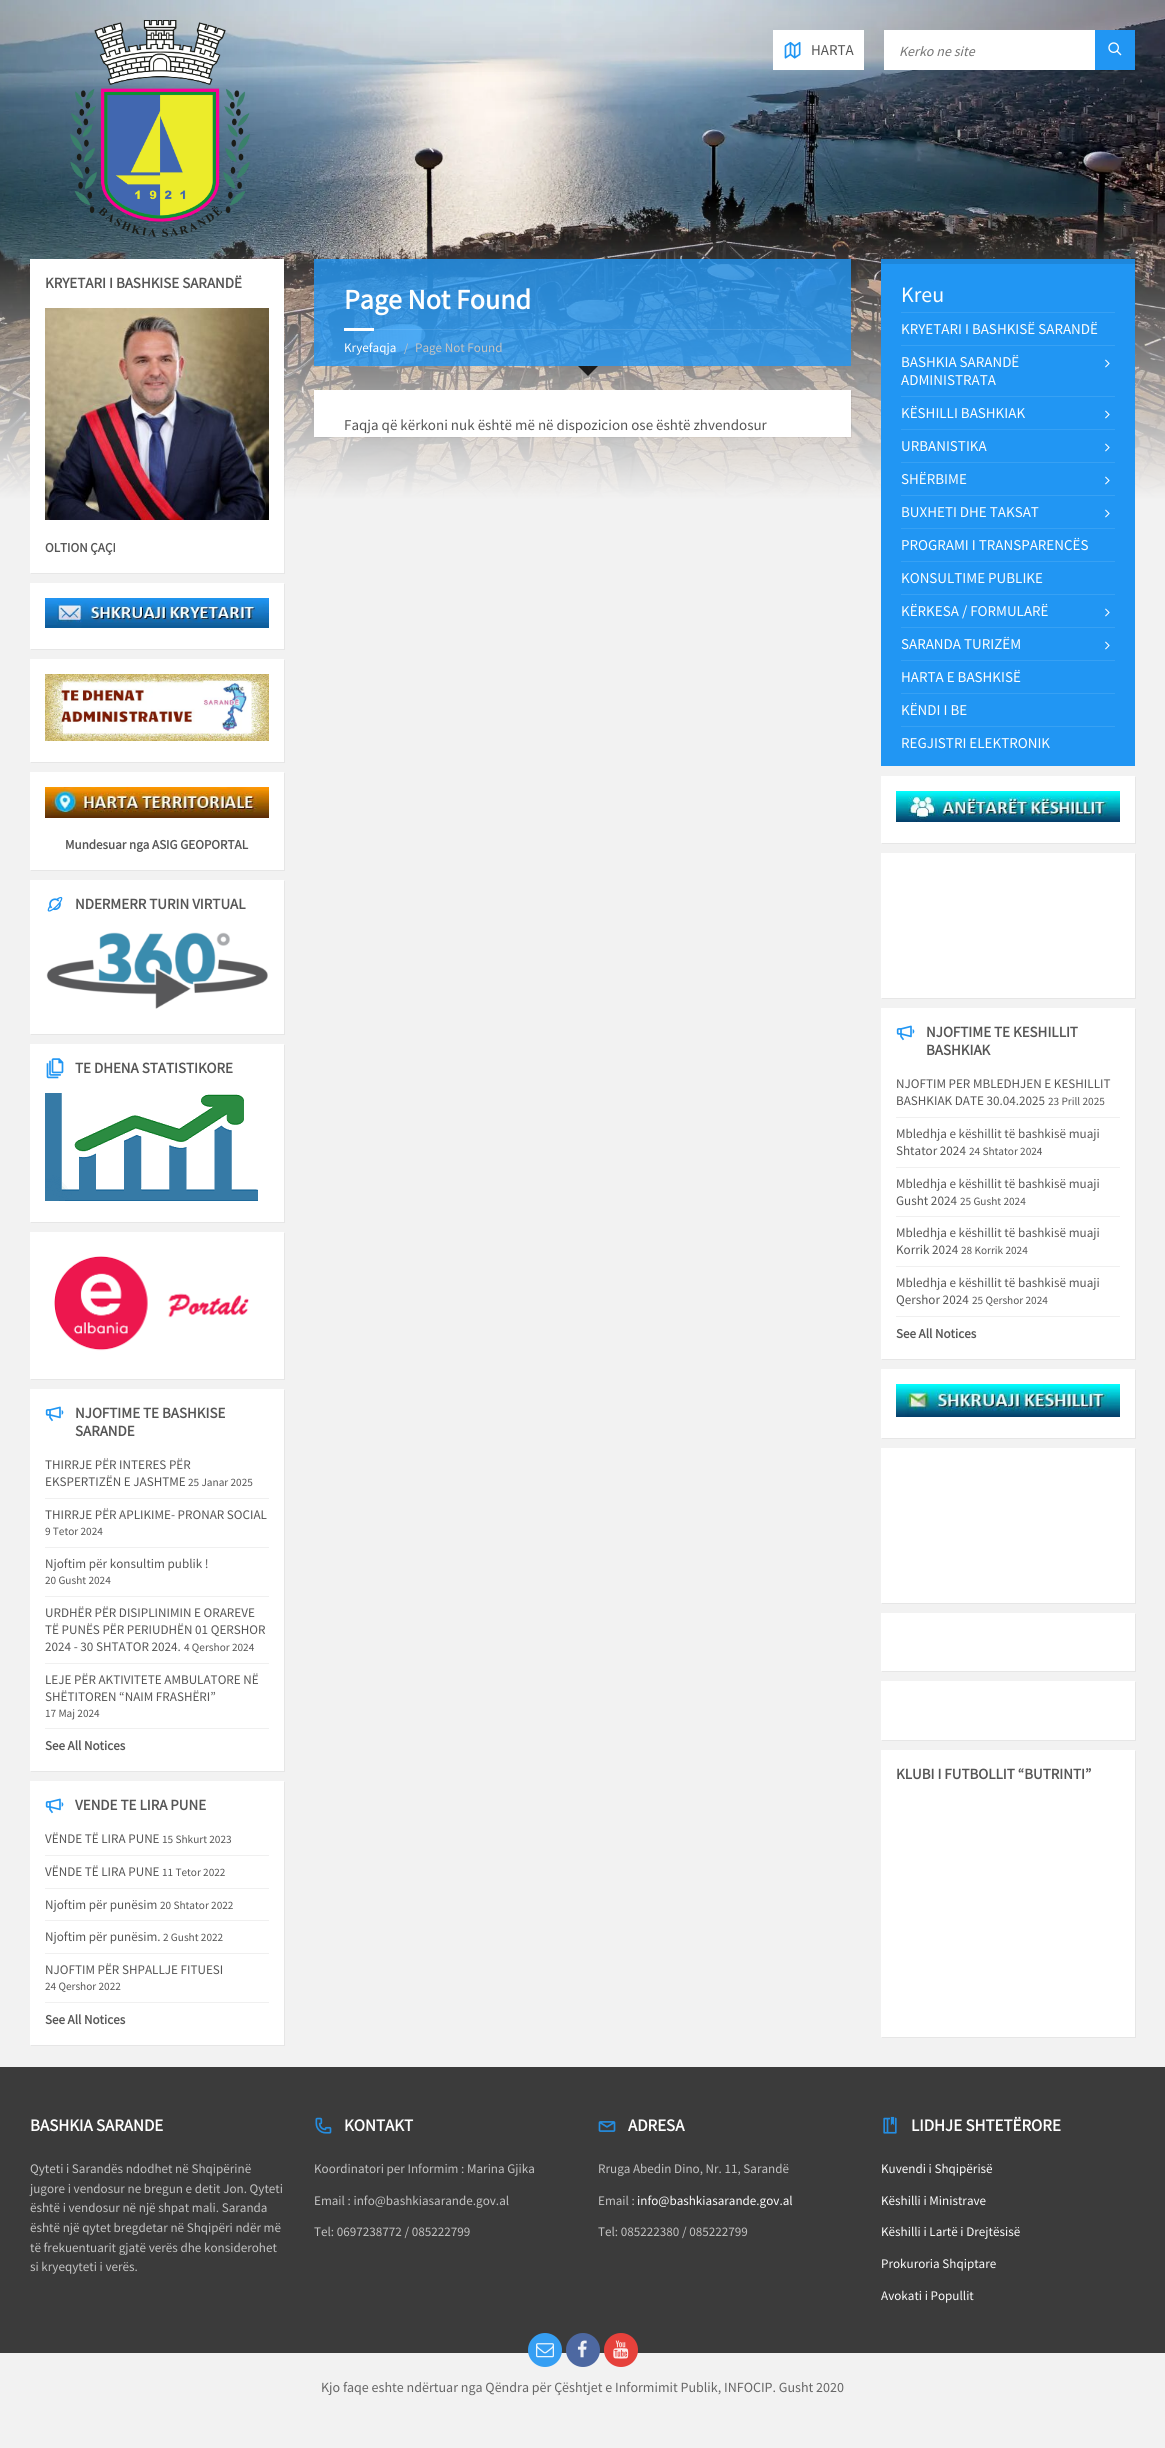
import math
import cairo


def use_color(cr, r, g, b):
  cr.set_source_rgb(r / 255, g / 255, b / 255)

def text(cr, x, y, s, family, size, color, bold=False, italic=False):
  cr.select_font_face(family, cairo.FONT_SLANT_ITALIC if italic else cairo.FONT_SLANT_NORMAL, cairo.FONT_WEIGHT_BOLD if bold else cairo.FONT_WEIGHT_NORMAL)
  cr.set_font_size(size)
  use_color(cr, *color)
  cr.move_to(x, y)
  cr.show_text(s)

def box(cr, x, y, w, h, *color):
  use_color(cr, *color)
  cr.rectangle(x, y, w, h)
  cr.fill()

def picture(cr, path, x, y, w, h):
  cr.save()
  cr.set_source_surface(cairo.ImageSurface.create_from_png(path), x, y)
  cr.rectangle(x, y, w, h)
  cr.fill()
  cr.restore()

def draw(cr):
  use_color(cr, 242, 242, 242)
  cr.paint()
  picture(cr, "img_01.png", 0, 0, 1165, 500)
  picture(cr, "img_02.png", 70, 20, 180, 217)
  box(cr, 773, 30, 91, 40, 255, 255, 255)
  picture(cr, "img_03.png", 784, 41, 17, 18)
  box(cr, 884, 30, 211, 40, 255, 255, 255)
  box(cr, 1095, 30, 40, 40, 33, 150, 243)
  picture(cr, "img_04.png", 1108, 42, 14, 14)
  cr.set_source_rgba(0, 0, 0, 0.05)
  cr.new_path()
  cr.move_to(31, 573)
  cr.line_to(31, 574)
  cr.line_to(285, 574)
  cr.line_to(285, 260)
  cr.line_to(284, 260)
  cr.line_to(284, 573)
  cr.close_path()
  cr.fill()
  box(cr, 30, 259, 254, 314, 255, 255, 255)
  picture(cr, "img_05.png", 45, 308, 224, 212)
  use_color(cr, 230, 230, 230)
  cr.new_path()
  cr.move_to(31, 649)
  cr.line_to(31, 650)
  cr.line_to(285, 650)
  cr.line_to(285, 584)
  cr.line_to(284, 584)
  cr.line_to(284, 649)
  cr.close_path()
  cr.fill()
  box(cr, 30, 583, 254, 66, 255, 255, 255)
  picture(cr, "img_06.png", 45, 598, 224, 30)
  use_color(cr, 230, 230, 230)
  cr.new_path()
  cr.move_to(31, 762)
  cr.line_to(31, 763)
  cr.line_to(285, 763)
  cr.line_to(285, 660)
  cr.line_to(284, 660)
  cr.line_to(284, 762)
  cr.close_path()
  cr.fill()
  box(cr, 30, 659, 254, 103, 255, 255, 255)
  picture(cr, "img_07.png", 45, 674, 224, 67)
  use_color(cr, 230, 230, 230)
  cr.new_path()
  cr.move_to(31, 870)
  cr.line_to(31, 871)
  cr.line_to(285, 871)
  cr.line_to(285, 773)
  cr.line_to(284, 773)
  cr.line_to(284, 870)
  cr.close_path()
  cr.fill()
  box(cr, 30, 772, 254, 98, 255, 255, 255)
  picture(cr, "img_08.png", 45, 787, 224, 31)
  use_color(cr, 230, 230, 230)
  cr.new_path()
  cr.move_to(31, 1034)
  cr.line_to(31, 1035)
  cr.line_to(285, 1035)
  cr.line_to(285, 881)
  cr.line_to(284, 881)
  cr.line_to(284, 1034)
  cr.close_path()
  cr.fill()
  box(cr, 30, 880, 254, 154, 255, 255, 255)
  picture(cr, "img_09.png", 47, 896, 16, 16)
  picture(cr, "img_10.png", 46, 932, 222, 77)
  use_color(cr, 230, 230, 230)
  cr.new_path()
  cr.move_to(31, 1222)
  cr.line_to(31, 1223)
  cr.line_to(285, 1223)
  cr.line_to(285, 1045)
  cr.line_to(284, 1045)
  cr.line_to(284, 1222)
  cr.close_path()
  cr.fill()
  box(cr, 30, 1044, 254, 178, 255, 255, 255)
  picture(cr, "img_11.png", 46, 1058, 18, 21)
  picture(cr, "img_12.png", 45, 1093, 213, 108)
  use_color(cr, 230, 230, 230)
  cr.new_path()
  cr.move_to(31, 1379)
  cr.line_to(31, 1380)
  cr.line_to(285, 1380)
  cr.line_to(285, 1233)
  cr.line_to(284, 1233)
  cr.line_to(284, 1379)
  cr.close_path()
  cr.fill()
  box(cr, 30, 1232, 254, 147, 255, 255, 255)
  picture(cr, "img_13.png", 54, 1256, 196, 95)
  use_color(cr, 230, 230, 230)
  cr.new_path()
  cr.move_to(31, 1771)
  cr.line_to(31, 1772)
  cr.line_to(285, 1772)
  cr.line_to(285, 1390)
  cr.line_to(284, 1390)
  cr.line_to(284, 1771)
  cr.close_path()
  cr.fill()
  box(cr, 30, 1389, 254, 382, 255, 255, 255)
  picture(cr, "img_14.png", 45, 1406, 19, 16)
  box(cr, 45, 1498, 224, 1, 240, 240, 240)
  box(cr, 45, 1547, 224, 1, 240, 240, 240)
  box(cr, 45, 1596, 224, 1, 240, 240, 240)
  box(cr, 45, 1663, 224, 1, 240, 240, 240)
  box(cr, 45, 1728, 224, 1, 240, 240, 240)
  use_color(cr, 230, 230, 230)
  cr.new_path()
  cr.move_to(31, 2045)
  cr.line_to(31, 2046)
  cr.line_to(285, 2046)
  cr.line_to(285, 1782)
  cr.line_to(284, 1782)
  cr.line_to(284, 2045)
  cr.close_path()
  cr.fill()
  box(cr, 30, 1781, 254, 264, 255, 255, 255)
  picture(cr, "img_14.png", 45, 1798, 19, 16)
  box(cr, 45, 1855, 224, 1, 240, 240, 240)
  box(cr, 45, 1888, 224, 1, 240, 240, 240)
  box(cr, 45, 1920, 224, 1, 240, 240, 240)
  box(cr, 45, 1953, 224, 1, 240, 240, 240)
  box(cr, 45, 2002, 224, 1, 240, 240, 240)
  cr.set_source_rgba(0.129, 0.588, 0.953, 0.8)
  cr.rectangle(314, 259, 537, 107)
  cr.fill()
  cr.set_source_rgba(1, 1, 1, 0.1)
  cr.rectangle(374, 329, 447, 1)
  cr.fill()
  box(cr, 344, 328, 30, 3, 255, 255, 255)
  cr.set_source_rgba(0, 0, 0, 0.8)
  cr.new_path()
  cr.move_to(578, 366)
  cr.line_to(598, 366)
  cr.line_to(588, 376)
  cr.close_path()
  cr.fill()
  cr.set_source_rgba(0, 0, 0, 0.05)
  cr.new_path()
  cr.move_to(315, 437)
  cr.line_to(315, 438)
  cr.line_to(852, 438)
  cr.line_to(852, 391)
  cr.line_to(851, 391)
  cr.line_to(851, 437)
  cr.close_path()
  cr.fill()
  box(cr, 314, 390, 537, 47, 255, 255, 255)
  box(cr, 881, 264, 254, 502, 33, 150, 243)
  box(cr, 881, 259, 254, 5, 30, 135, 219)
  box(cr, 901, 312, 214, 1, 55, 161, 244)
  box(cr, 901, 345, 214, 1, 55, 161, 244)
  picture(cr, "img_15.png", 1105, 359, 5, 9)
  box(cr, 901, 396, 214, 1, 55, 161, 244)
  picture(cr, "img_15.png", 1105, 410, 5, 9)
  box(cr, 901, 429, 214, 1, 55, 161, 244)
  picture(cr, "img_15.png", 1105, 443, 5, 9)
  box(cr, 901, 462, 214, 1, 55, 161, 244)
  picture(cr, "img_15.png", 1105, 476, 5, 9)
  box(cr, 901, 495, 214, 1, 55, 161, 244)
  picture(cr, "img_15.png", 1105, 509, 5, 9)
  box(cr, 901, 528, 214, 1, 55, 161, 244)
  box(cr, 901, 561, 214, 1, 55, 161, 244)
  box(cr, 901, 594, 214, 1, 55, 161, 244)
  picture(cr, "img_15.png", 1105, 608, 5, 9)
  box(cr, 901, 627, 214, 1, 55, 161, 244)
  picture(cr, "img_15.png", 1105, 641, 5, 9)
  box(cr, 901, 660, 214, 1, 55, 161, 244)
  box(cr, 901, 693, 214, 1, 55, 161, 244)
  box(cr, 901, 726, 214, 1, 55, 161, 244)
  use_color(cr, 230, 230, 230)
  cr.new_path()
  cr.move_to(882, 843)
  cr.line_to(882, 844)
  cr.line_to(1136, 844)
  cr.line_to(1136, 777)
  cr.line_to(1135, 777)
  cr.line_to(1135, 843)
  cr.close_path()
  cr.fill()
  box(cr, 881, 776, 254, 67, 255, 255, 255)
  picture(cr, "img_16.png", 896, 791, 224, 31)
  use_color(cr, 230, 230, 230)
  cr.new_path()
  cr.move_to(882, 998)
  cr.line_to(882, 999)
  cr.line_to(1136, 999)
  cr.line_to(1136, 854)
  cr.line_to(1135, 854)
  cr.line_to(1135, 998)
  cr.close_path()
  cr.fill()
  box(cr, 881, 853, 254, 145, 255, 255, 255)
  use_color(cr, 230, 230, 230)
  cr.new_path()
  cr.move_to(882, 1359)
  cr.line_to(882, 1360)
  cr.line_to(1136, 1360)
  cr.line_to(1136, 1009)
  cr.line_to(1135, 1009)
  cr.line_to(1135, 1359)
  cr.close_path()
  cr.fill()
  box(cr, 881, 1008, 254, 351, 255, 255, 255)
  picture(cr, "img_14.png", 896, 1025, 19, 16)
  box(cr, 896, 1117, 224, 1, 240, 240, 240)
  box(cr, 896, 1167, 224, 1, 240, 240, 240)
  box(cr, 896, 1216, 224, 1, 240, 240, 240)
  box(cr, 896, 1266, 224, 1, 240, 240, 240)
  box(cr, 896, 1316, 224, 1, 240, 240, 240)
  use_color(cr, 230, 230, 230)
  cr.new_path()
  cr.move_to(882, 1438)
  cr.line_to(882, 1439)
  cr.line_to(1136, 1439)
  cr.line_to(1136, 1370)
  cr.line_to(1135, 1370)
  cr.line_to(1135, 1438)
  cr.close_path()
  cr.fill()
  box(cr, 881, 1369, 254, 69, 255, 255, 255)
  picture(cr, "img_17.png", 896, 1384, 224, 33)
  use_color(cr, 230, 230, 230)
  cr.new_path()
  cr.move_to(882, 1603)
  cr.line_to(882, 1604)
  cr.line_to(1136, 1604)
  cr.line_to(1136, 1449)
  cr.line_to(1135, 1449)
  cr.line_to(1135, 1603)
  cr.close_path()
  cr.fill()
  box(cr, 881, 1448, 254, 155, 255, 255, 255)
  use_color(cr, 230, 230, 230)
  cr.new_path()
  cr.move_to(882, 1671)
  cr.line_to(882, 1672)
  cr.line_to(1136, 1672)
  cr.line_to(1136, 1614)
  cr.line_to(1135, 1614)
  cr.line_to(1135, 1671)
  cr.close_path()
  cr.fill()
  box(cr, 881, 1613, 254, 58, 255, 255, 255)
  use_color(cr, 230, 230, 230)
  cr.new_path()
  cr.move_to(882, 1740)
  cr.line_to(882, 1741)
  cr.line_to(1136, 1741)
  cr.line_to(1136, 1682)
  cr.line_to(1135, 1682)
  cr.line_to(1135, 1740)
  cr.close_path()
  cr.fill()
  box(cr, 881, 1681, 254, 59, 255, 255, 255)
  use_color(cr, 230, 230, 230)
  cr.new_path()
  cr.move_to(882, 2037)
  cr.line_to(882, 2038)
  cr.line_to(1136, 2038)
  cr.line_to(1136, 1751)
  cr.line_to(1135, 1751)
  cr.line_to(1135, 2037)
  cr.close_path()
  cr.fill()
  box(cr, 881, 1750, 254, 287, 255, 255, 255)
  box(cr, 0, 2067, 1165, 286, 59, 59, 59)
  picture(cr, "img_18.png", 315, 2117, 17, 17)
  picture(cr, "img_19.png", 598, 2121, 18, 11)
  picture(cr, "img_20.png", 883, 2116, 14, 18)
  use_color(cr, 54, 159, 243)
  cr.arc(545, 2350, 17, 0, 2 * math.pi)
  cr.fill()
  picture(cr, "img_21.png", 536, 2343, 18, 15)
  use_color(cr, 77, 104, 161)
  cr.arc(583, 2350, 17, 0, 2 * math.pi)
  cr.fill()
  picture(cr, "img_22.png", 577, 2340, 10, 18)
  use_color(cr, 230, 65, 59)
  cr.arc(621, 2350, 17, 0, 2 * math.pi)
  cr.fill()
  picture(cr, "img_23.png", 613, 2340, 16, 19)
  text(cr, 811, 55, "HARTA", "Source Sans Pro", 15, (86, 86, 86))
  text(cr, 899, 56, "Kerko ne site", "Source Sans Pro", 14, (117, 117, 117), italic=True)
  text(cr, 45, 288, "KRYETARI I BASHKISE SARANDË", "Source Sans Pro", 15, (86, 86, 86), bold=True)
  text(cr, 45, 552, "OLTION ÇAÇI", "Source Sans Pro", 13.1, (86, 86, 86), bold=True)
  text(cr, 65, 849, "Mundesuar nga", "Source Sans Pro", 13.1, (86, 86, 86), bold=True)
  text(cr, 152, 849, "ASIG GEOPORTAL", "Source Sans Pro", 13.1, (86, 86, 86), bold=True)
  text(cr, 75, 909, "NDERMERR TURIN VIRTUAL", "Source Sans Pro", 15, (86, 86, 86), bold=True)
  text(cr, 75, 1073, "TE DHENA STATISTIKORE", "Source Sans Pro", 15, (86, 86, 86), bold=True)
  text(cr, 75, 1418, "NJOFTIME TE BASHKISE", "Source Sans Pro", 15, (86, 86, 86), bold=True)
  text(cr, 75, 1436, "SARANDE", "Source Sans Pro", 15, (86, 86, 86), bold=True)
  text(cr, 45, 1469, "THIRRJE PËR INTERES PËR", "Source Sans Pro", 13.1, (86, 86, 86))
  text(cr, 45, 1486, "EKSPERTIZËN E JASHTME", "Source Sans Pro", 13.1, (86, 86, 86))
  text(cr, 188, 1486, "25 Janar 2025", "Source Sans Pro", 11.25, (86, 86, 86))
  text(cr, 45, 1519, "THIRRJE PËR APLIKIME- PRONAR SOCIAL", "Source Sans Pro", 13.1, (86, 86, 86))
  text(cr, 45, 1535, "9 Tetor 2024", "Source Sans Pro", 11.25, (86, 86, 86))
  text(cr, 45, 1568, "Njoftim për konsultim publik !", "Source Sans Pro", 13.1, (86, 86, 86))
  text(cr, 45, 1584, "20 Gusht 2024", "Source Sans Pro", 11.25, (86, 86, 86))
  text(cr, 45, 1617, "URDHËR PËR DISIPLINIMIN E ORAREVE", "Source Sans Pro", 13.1, (86, 86, 86))
  text(cr, 45, 1634, "TË PUNËS PËR PERIUDHËN 01 QERSHOR", "Source Sans Pro", 13.1, (86, 86, 86))
  text(cr, 45, 1651, "2024 - 30 SHTATOR 2024.", "Source Sans Pro", 13.1, (86, 86, 86))
  text(cr, 184, 1651, "4 Qershor 2024", "Source Sans Pro", 11.25, (86, 86, 86))
  text(cr, 45, 1684, "LEJE PËR AKTIVITETE AMBULATORE NË", "Source Sans Pro", 13.1, (86, 86, 86))
  text(cr, 45, 1701, "SHËTITOREN “NAIM FRASHËRI”", "Source Sans Pro", 13.1, (86, 86, 86))
  text(cr, 45, 1717, "17 Maj 2024", "Source Sans Pro", 11.25, (86, 86, 86))
  text(cr, 45, 1750, "See All Notices", "Source Sans Pro", 13.1, (86, 86, 86), bold=True)
  text(cr, 75, 1810, "VENDE TE LIRA PUNE", "Source Sans Pro", 15, (86, 86, 86), bold=True)
  text(cr, 45, 1843, "VËNDE TË LIRA PUNE", "Source Sans Pro", 13.1, (86, 86, 86))
  text(cr, 162, 1843, "15 Shkurt 2023", "Source Sans Pro", 11.25, (86, 86, 86))
  text(cr, 45, 1876, "VËNDE TË LIRA PUNE", "Source Sans Pro", 13.1, (86, 86, 86))
  text(cr, 162, 1876, "11 Tetor 2022", "Source Sans Pro", 11.25, (86, 86, 86))
  text(cr, 45, 1909, "Njoftim për punësim", "Source Sans Pro", 13.1, (86, 86, 86))
  text(cr, 160, 1909, "20 Shtator 2022", "Source Sans Pro", 11.25, (86, 86, 86))
  text(cr, 45, 1941, "Njoftim për punësim.", "Source Sans Pro", 13.1, (86, 86, 86))
  text(cr, 163, 1941, "2 Gusht 2022", "Source Sans Pro", 11.25, (86, 86, 86))
  text(cr, 45, 1974, "NJOFTIM PËR SHPALLJE FITUESI", "Source Sans Pro", 13.1, (86, 86, 86))
  text(cr, 45, 1990, "24 Qershor 2022", "Source Sans Pro", 11.25, (86, 86, 86))
  text(cr, 45, 2024, "See All Notices", "Source Sans Pro", 13.1, (86, 86, 86), bold=True)
  text(cr, 344, 309, "Page Not Found", "Source Sans Pro", 28, (254, 254, 254), bold=True)
  text(cr, 344, 352, "Kryefaqja", "Source Sans Pro", 13.1, (254, 254, 254))
  text(cr, 404, 352, "/", "Source Sans Pro", 12, (195, 195, 195))
  text(cr, 415, 352, "Page Not Found", "Source Sans Pro", 13.1, (195, 195, 195))
  text(cr, 344, 430, "Faqja që kërkoni nuk është më në dispozicion ose është zhvendosur", "Source Sans Pro", 15, (86, 86, 86))
  text(cr, 901, 302, "Kreu", "Source Sans Pro", 22, (254, 254, 254))
  text(cr, 901, 334, "KRYETARI I BASHKISË SARANDË", "Source Sans Pro", 15, (254, 254, 254))
  text(cr, 901, 367, "BASHKIA SARANDË", "Source Sans Pro", 15, (254, 254, 254))
  text(cr, 901, 385, "ADMINISTRATA", "Source Sans Pro", 15, (254, 254, 254))
  text(cr, 901, 418, "KËSHILLI BASHKIAK", "Source Sans Pro", 15, (254, 254, 254))
  text(cr, 901, 451, "URBANISTIKA", "Source Sans Pro", 15, (254, 254, 254))
  text(cr, 901, 484, "SHËRBIME", "Source Sans Pro", 15, (254, 254, 254))
  text(cr, 901, 517, "BUXHETI DHE TAKSAT", "Source Sans Pro", 15, (254, 254, 254))
  text(cr, 901, 550, "PROGRAMI I TRANSPARENCËS", "Source Sans Pro", 15, (254, 254, 254))
  text(cr, 901, 583, "KONSULTIME PUBLIKE", "Source Sans Pro", 15, (254, 254, 254))
  text(cr, 901, 616, "KËRKESA / FORMULARË", "Source Sans Pro", 15, (254, 254, 254))
  text(cr, 901, 649, "SARANDA TURIZËM", "Source Sans Pro", 15, (254, 254, 254))
  text(cr, 901, 682, "HARTA E BASHKISË", "Source Sans Pro", 15, (254, 254, 254))
  text(cr, 901, 715, "KËNDI I BE", "Source Sans Pro", 15, (254, 254, 254))
  text(cr, 901, 748, "REGJISTRI ELEKTRONIK", "Source Sans Pro", 15, (254, 254, 254))
  text(cr, 926, 1037, "NJOFTIME TE KESHILLIT", "Source Sans Pro", 15, (86, 86, 86), bold=True)
  text(cr, 926, 1055, "BASHKIAK", "Source Sans Pro", 15, (86, 86, 86), bold=True)
  text(cr, 896, 1088, "NJOFTIM PER MBLEDHJEN E KESHILLIT", "Source Sans Pro", 13.1, (86, 86, 86))
  text(cr, 896, 1105, "BASHKIAK DATE 30.04.2025", "Source Sans Pro", 13.1, (86, 86, 86))
  text(cr, 1048, 1105, "23 Prill 2025", "Source Sans Pro", 11.25, (86, 86, 86))
  text(cr, 896, 1138, "Mbledhja e këshillit të bashkisë muaji", "Source Sans Pro", 13.1, (86, 86, 86))
  text(cr, 896, 1155, "Shtator 2024", "Source Sans Pro", 13.1, (86, 86, 86))
  text(cr, 969, 1155, "24 Shtator 2024", "Source Sans Pro", 11.25, (86, 86, 86))
  text(cr, 896, 1188, "Mbledhja e këshillit të bashkisë muaji", "Source Sans Pro", 13.1, (86, 86, 86))
  text(cr, 896, 1205, "Gusht 2024", "Source Sans Pro", 13.1, (86, 86, 86))
  text(cr, 960, 1205, "25 Gusht 2024", "Source Sans Pro", 11.25, (86, 86, 86))
  text(cr, 896, 1237, "Mbledhja e këshillit të bashkisë muaji", "Source Sans Pro", 13.1, (86, 86, 86))
  text(cr, 896, 1254, "Korrik 2024", "Source Sans Pro", 13.1, (86, 86, 86))
  text(cr, 961, 1254, "28 Korrik 2024", "Source Sans Pro", 11.25, (86, 86, 86))
  text(cr, 896, 1287, "Mbledhja e këshillit të bashkisë muaji", "Source Sans Pro", 13.1, (86, 86, 86))
  text(cr, 896, 1304, "Qershor 2024", "Source Sans Pro", 13.1, (86, 86, 86))
  text(cr, 972, 1304, "25 Qershor 2024", "Source Sans Pro", 11.25, (86, 86, 86))
  text(cr, 896, 1338, "See All Notices", "Source Sans Pro", 13.1, (86, 86, 86), bold=True)
  text(cr, 896, 1779, "KLUBI I FUTBOLLIT “BUTRINTI”", "Source Sans Pro", 15, (86, 86, 86), bold=True)
  text(cr, 30, 2131, "BASHKIA SARANDE", "Source Sans Pro", 16.9, (254, 254, 254), bold=True)
  text(cr, 30, 2173, "Qyteti i Sarandës ndodhet në Shqipërinë", "Source Sans Pro", 13.1, (195, 195, 195))
  text(cr, 30, 2193, "jugore i vendosur ne bregun e detit Jon. Qyteti", "Source Sans Pro", 13.1, (195, 195, 195))
  text(cr, 30, 2212, "është i vendosur në një shpat mali. Saranda", "Source Sans Pro", 13.1, (195, 195, 195))
  text(cr, 30, 2232, "është një qytet bregdetar në Shqipëri ndër më", "Source Sans Pro", 13.1, (195, 195, 195))
  text(cr, 30, 2252, "të frekuentuarit gjatë verës dhe konsiderohet", "Source Sans Pro", 13.1, (195, 195, 195))
  text(cr, 30, 2271, "si kryeqyteti i verës.", "Source Sans Pro", 13.1, (195, 195, 195))
  text(cr, 344, 2131, "KONTAKT", "Source Sans Pro", 16.9, (254, 254, 254), bold=True)
  text(cr, 314, 2173, "Koordinatori per Informim : Marina Gjika", "Source Sans Pro", 13.1, (195, 195, 195))
  text(cr, 314, 2205, "Email : info@bashkiasarande.gov.al", "Source Sans Pro", 13.1, (195, 195, 195))
  text(cr, 314, 2236, "Tel: 0697238772 / 085222799", "Source Sans Pro", 13.1, (195, 195, 195))
  text(cr, 628, 2131, "ADRESA", "Source Sans Pro", 16.9, (254, 254, 254), bold=True)
  text(cr, 598, 2173, "Rruga Abedin Dino, Nr. 11, Sarandë", "Source Sans Pro", 13.1, (195, 195, 195))
  text(cr, 598, 2205, "Email :", "Source Sans Pro", 13.1, (195, 195, 195))
  text(cr, 637, 2205, "info@bashkiasarande.gov.al", "Source Sans Pro", 13.1, (254, 254, 254))
  text(cr, 598, 2236, "Tel: 085222380 / 085222799", "Source Sans Pro", 13.1, (195, 195, 195))
  text(cr, 911, 2131, "LIDHJE SHTETËRORE", "Source Sans Pro", 16.9, (254, 254, 254), bold=True)
  text(cr, 881, 2173, "Kuvendi i Shqipërisë", "Source Sans Pro", 13.1, (254, 254, 254))
  text(cr, 881, 2205, "Këshilli i Ministrave", "Source Sans Pro", 13.1, (254, 254, 254))
  text(cr, 881, 2236, "Këshilli i Lartë i Drejtësisë", "Source Sans Pro", 13.1, (254, 254, 254))
  text(cr, 881, 2268, "Prokuroria Shqiptare", "Source Sans Pro", 13.1, (254, 254, 254))
  text(cr, 881, 2300, "Avokati i Popullit", "Source Sans Pro", 13.1, (254, 254, 254))
  text(cr, 321, 2392, "Kjo faqe eshte ndërtuar nga Qëndra për Çështjet e Informimit Publik, INFOCIP. Gusht 2020", "Source Sans Pro", 14, (102, 102, 102))


surface = cairo.ImageSurface(cairo.FORMAT_RGB24, 1165, 2448)
cr = cairo.Context(surface)
options = cairo.FontOptions()
options.set_hint_metrics(cairo.HINT_METRICS_OFF)
options.set_hint_style(cairo.HINT_STYLE_NONE)
cr.set_font_options(options)
cr.set_miter_limit(4)
draw(cr)
surface.write_to_png("out.png")
